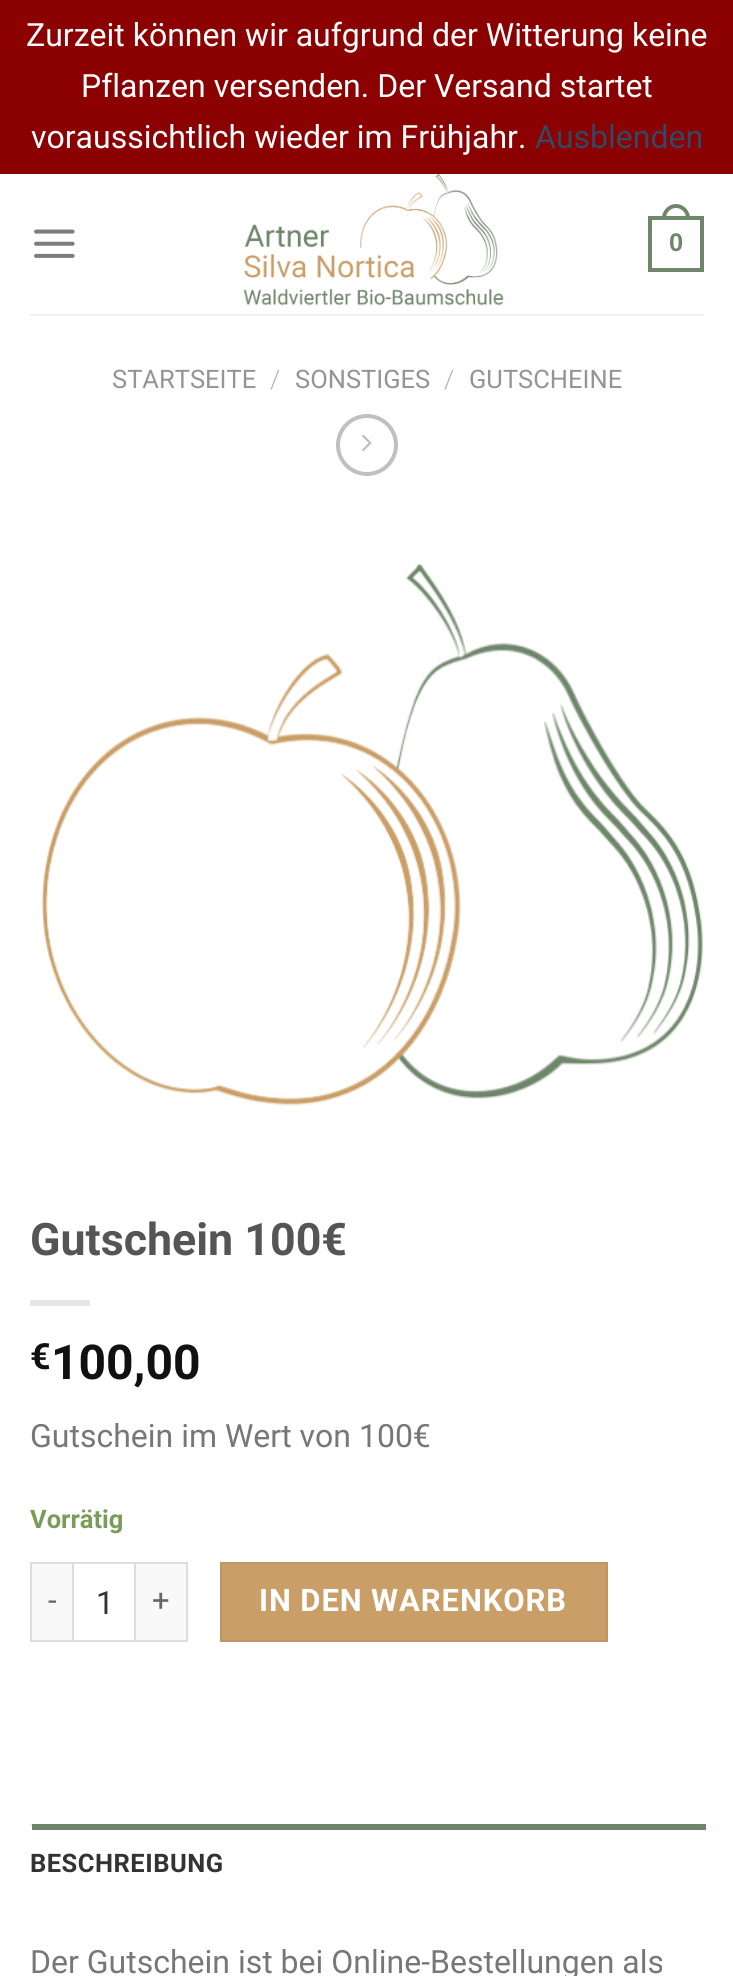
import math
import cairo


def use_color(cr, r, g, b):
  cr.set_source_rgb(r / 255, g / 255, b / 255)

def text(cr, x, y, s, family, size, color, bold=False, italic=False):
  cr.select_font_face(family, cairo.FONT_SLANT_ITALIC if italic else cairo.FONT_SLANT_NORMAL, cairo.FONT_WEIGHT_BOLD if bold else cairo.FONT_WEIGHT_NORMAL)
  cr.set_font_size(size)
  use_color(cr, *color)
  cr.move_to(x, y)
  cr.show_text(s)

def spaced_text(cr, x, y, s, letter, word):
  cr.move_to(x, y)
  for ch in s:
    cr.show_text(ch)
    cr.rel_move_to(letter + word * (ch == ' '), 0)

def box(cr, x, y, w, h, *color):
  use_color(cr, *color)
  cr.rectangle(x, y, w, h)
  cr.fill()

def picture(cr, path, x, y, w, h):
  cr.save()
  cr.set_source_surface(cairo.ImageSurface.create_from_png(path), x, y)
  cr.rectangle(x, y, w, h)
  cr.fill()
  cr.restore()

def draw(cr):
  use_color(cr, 139, 0, 0)
  cr.paint()
  box(cr, 0, 174, 733, 1802, 255, 255, 255)
  picture(cr, "img_01.png", 34, 229, 41, 29)
  picture(cr, "img_02.png", 243, 174, 261, 132)
  cr.rectangle(650, 218, 52, 52)
  use_color(cr, 110, 134, 106)
  cr.set_line_width(4)
  cr.stroke()
  cr.set_fill_rule(cairo.FILL_RULE_EVEN_ODD)
  cr.new_path()
  cr.move_to(676, 204)
  cr.curve_to(683.5, 204, 690, 210.5, 690, 218)
  cr.line_to(690, 220)
  cr.line_to(662, 220)
  cr.line_to(662, 218)
  cr.curve_to(662, 210.5, 668.5, 204, 676, 204)
  cr.close_path()
  cr.move_to(676, 208)
  cr.curve_to(681.5, 208, 686, 212.5, 686, 218)
  cr.line_to(686, 220)
  cr.line_to(666, 220)
  cr.line_to(666, 218)
  cr.curve_to(666, 212.5, 670.5, 208, 676, 208)
  cr.close_path()
  cr.fill()
  box(cr, 30, 314, 674, 2, 241, 241, 241)
  cr.arc(367, 445, 29, 0, 2 * math.pi)
  use_color(cr, 192, 192, 192)
  cr.stroke()
  picture(cr, "img_03.png", 362, 434, 10, 18)
  picture(cr, "img_04.png", 41, 563, 662, 543)
  box(cr, 30, 1300, 60, 6, 230, 230, 230)
  box(cr, 32, 1564, 40, 76, 249, 249, 249)
  box(cr, 30, 1562, 42, 2, 221, 221, 221)
  box(cr, 30, 1640, 42, 2, 221, 221, 221)
  box(cr, 30, 1562, 2, 80, 221, 221, 221)
  cr.rectangle(73, 1563, 62, 78)
  cr.set_line_width(2)
  cr.stroke()
  box(cr, 136, 1564, 50, 76, 249, 249, 249)
  box(cr, 136, 1562, 52, 2, 221, 221, 221)
  box(cr, 186, 1562, 2, 80, 221, 221, 221)
  box(cr, 136, 1640, 52, 2, 221, 221, 221)
  use_color(cr, 201, 158, 103)
  cr.rectangle(221, 1563, 386, 78)
  cr.fill_preserve()
  use_color(cr, 191, 150, 98)
  cr.stroke()
  box(cr, 30, 1824, 2, 2, 236, 236, 236)
  box(cr, 32, 1824, 674, 6, 110, 134, 106)
  text(cr, 26, 46, "Zurzeit können wir aufgrund der Witterung keine", "Roboto", 32, (255, 255, 255))
  text(cr, 81, 97, "Pflanzen versenden. Der Versand startet", "Roboto", 32, (255, 255, 255))
  text(cr, 31, 148, "voraussichtlich wieder im Frühjahr.", "Roboto", 32, (255, 255, 255))
  text(cr, 535, 148, "Ausblenden", "Roboto", 32, (51, 72, 98))
  text(cr, 669, 251, "0", "Liberation Sans", 25.5, (110, 134, 106), bold=True)
  text(cr, 112, 388, "STARTSEITE", "Roboto", 25.5, (148, 148, 148))
  text(cr, 270, 388, "/", "Roboto Light", 25.5, (178, 178, 178))
  text(cr, 295, 388, "SONSTIGES", "Roboto", 25.5, (148, 148, 148))
  text(cr, 444, 388, "/", "Roboto Light", 25.5, (178, 178, 178))
  text(cr, 469, 388, "GUTSCHEINE", "Roboto", 25.5, (148, 148, 148))
  text(cr, 30, 1255, "Gutschein 100€", "Roboto", 44.75, (85, 85, 85), bold=True)
  text(cr, 30, 1369, "€", "Roboto", 36, (17, 17, 17), bold=True)
  text(cr, 51, 1379, "100,00", "Roboto", 48, (17, 17, 17), bold=True)
  text(cr, 30, 1447, "Gutschein im Wert von 100€", "Roboto", 32, (119, 119, 119))
  text(cr, 30, 1528, "Vorrätig", "Roboto", 25.5, (122, 156, 89), bold=True)
  cr.select_font_face("Roboto")
  cr.set_font_size(31)
  use_color(cr, 102, 102, 102)
  spaced_text(cr, 48, 1611, "-", 0.9, 0)
  text(cr, 96, 1614, "1", "Roboto", 32, (51, 51, 51))
  cr.set_font_size(31)
  use_color(cr, 102, 102, 102)
  spaced_text(cr, 152, 1611, "+", 0.9, 0)
  cr.select_font_face("Roboto", cairo.FONT_SLANT_NORMAL, cairo.FONT_WEIGHT_BOLD)
  use_color(cr, 255, 255, 255)
  spaced_text(cr, 259, 1611, "IN DEN WARENKORB", 0.9, 0)
  cr.set_font_size(25.5)
  use_color(cr, 51, 51, 51)
  spaced_text(cr, 30, 1872, "BESCHREIBUNG", 0.5, 0)
  text(cr, 30, 1973, "Der Gutschein ist bei Online-Bestellungen als", "Roboto", 32, (119, 119, 119))


surface = cairo.ImageSurface(cairo.FORMAT_RGB24, 733, 1976)
cr = cairo.Context(surface)
options = cairo.FontOptions()
options.set_hint_metrics(cairo.HINT_METRICS_OFF)
options.set_hint_style(cairo.HINT_STYLE_NONE)
cr.set_font_options(options)
cr.set_miter_limit(4)
draw(cr)
surface.write_to_png("out.png")
